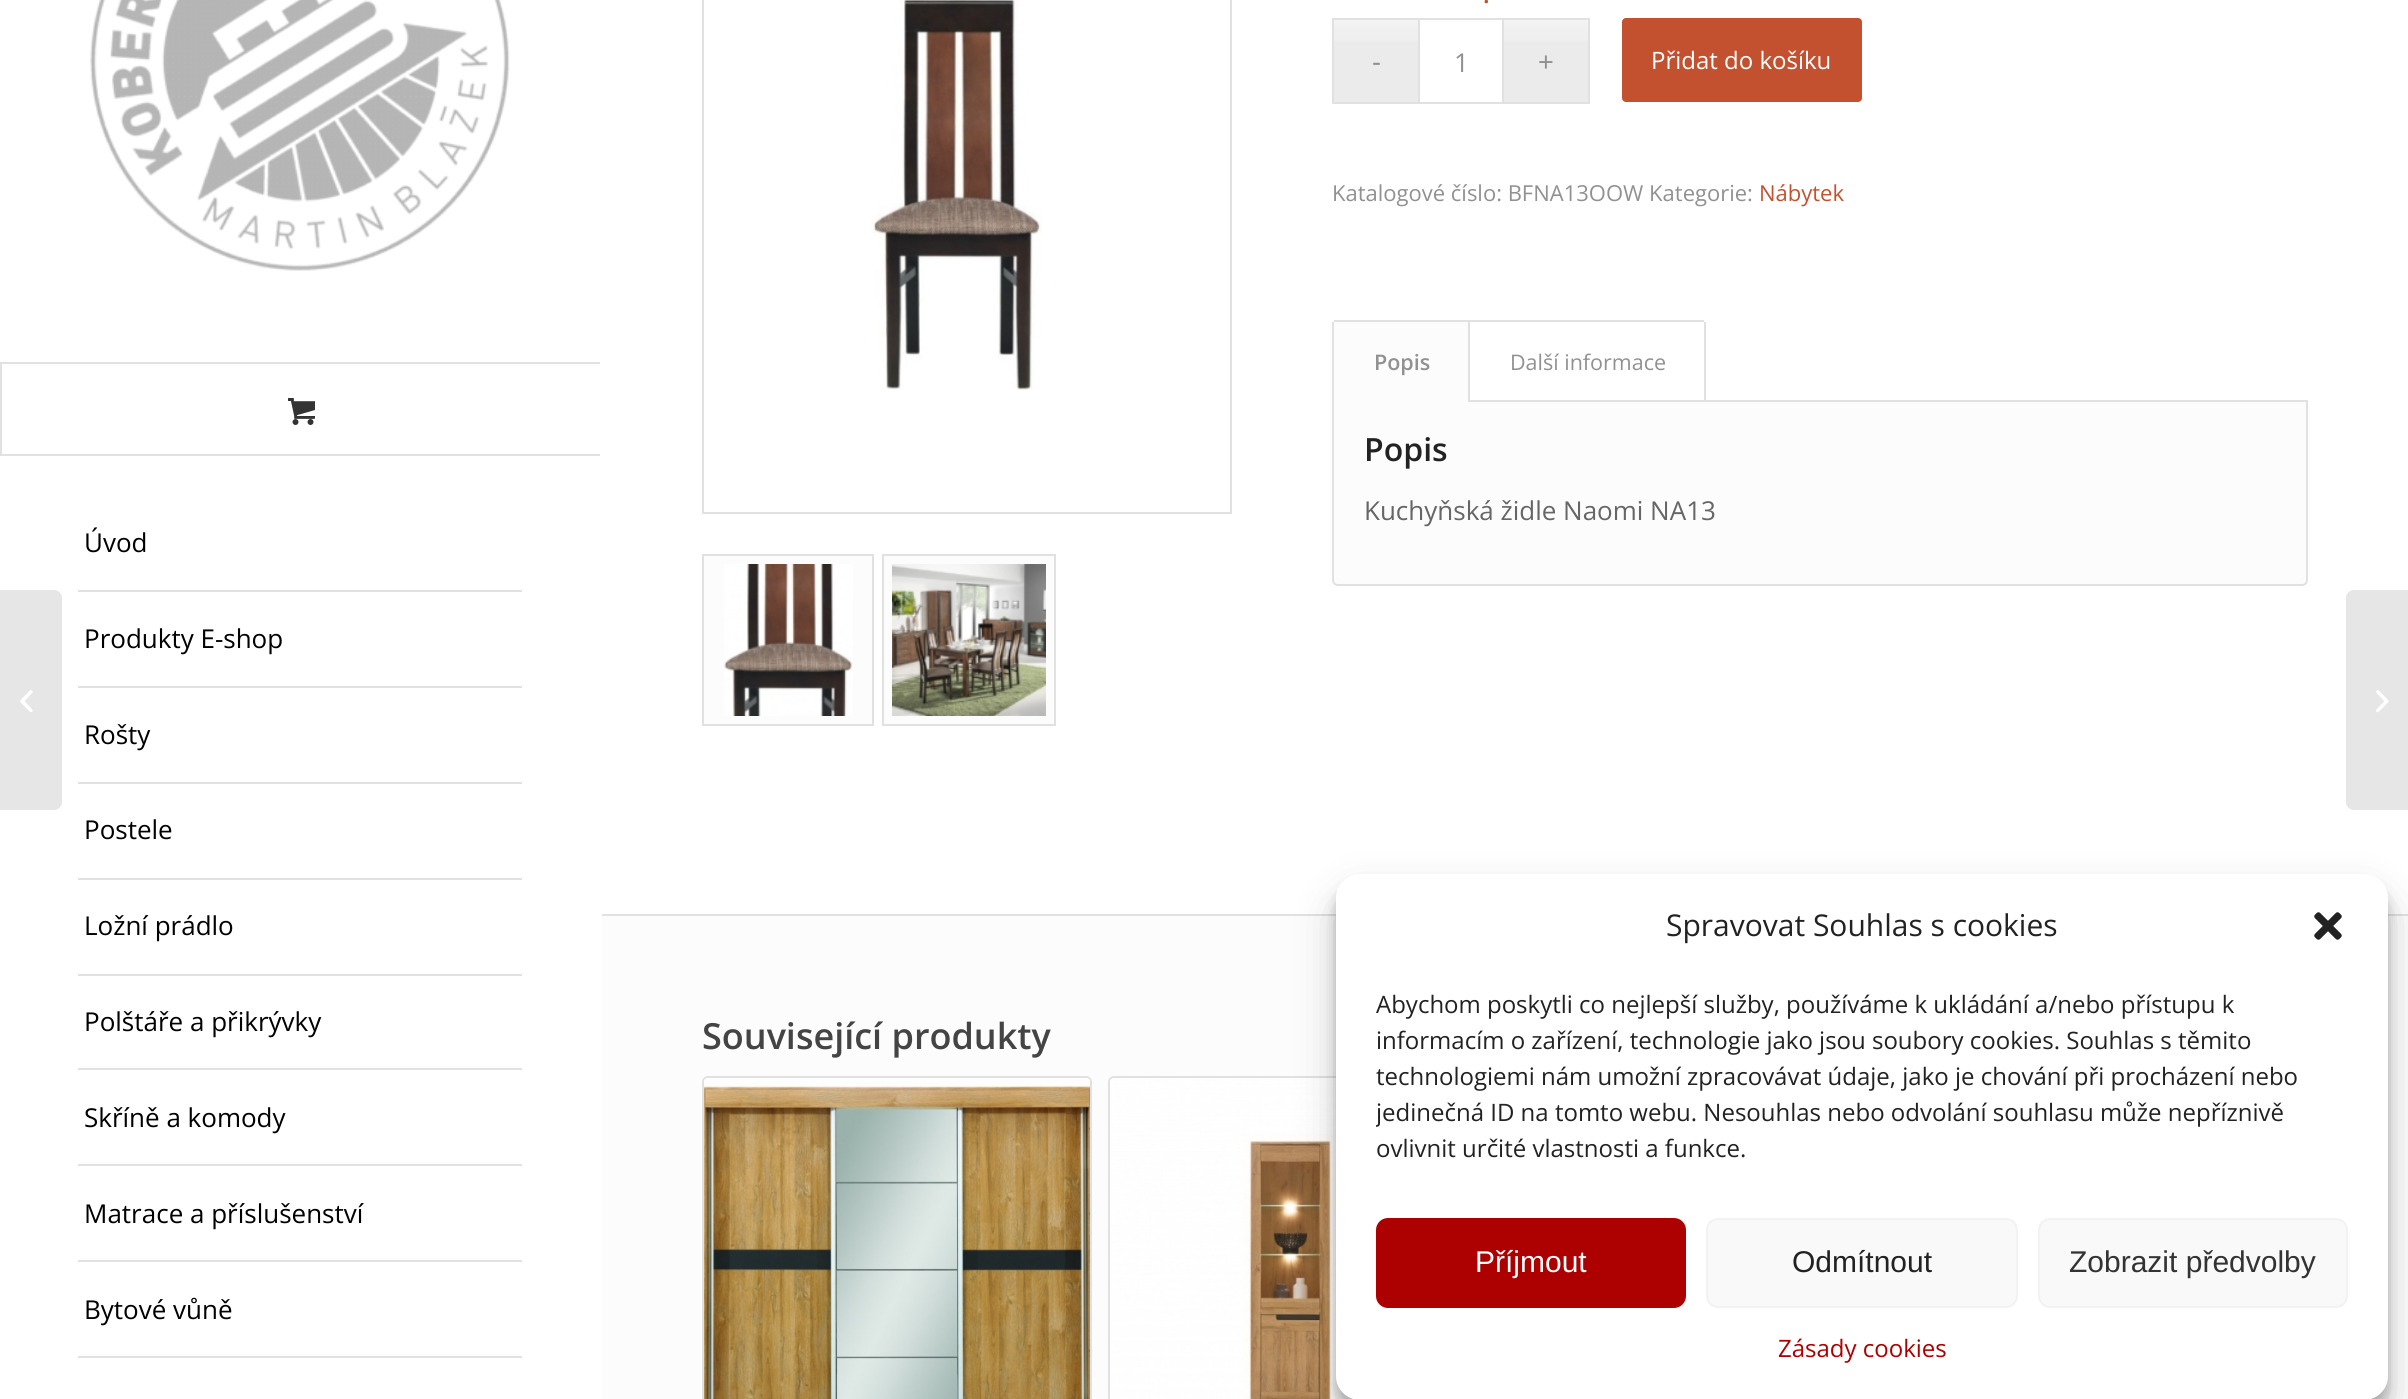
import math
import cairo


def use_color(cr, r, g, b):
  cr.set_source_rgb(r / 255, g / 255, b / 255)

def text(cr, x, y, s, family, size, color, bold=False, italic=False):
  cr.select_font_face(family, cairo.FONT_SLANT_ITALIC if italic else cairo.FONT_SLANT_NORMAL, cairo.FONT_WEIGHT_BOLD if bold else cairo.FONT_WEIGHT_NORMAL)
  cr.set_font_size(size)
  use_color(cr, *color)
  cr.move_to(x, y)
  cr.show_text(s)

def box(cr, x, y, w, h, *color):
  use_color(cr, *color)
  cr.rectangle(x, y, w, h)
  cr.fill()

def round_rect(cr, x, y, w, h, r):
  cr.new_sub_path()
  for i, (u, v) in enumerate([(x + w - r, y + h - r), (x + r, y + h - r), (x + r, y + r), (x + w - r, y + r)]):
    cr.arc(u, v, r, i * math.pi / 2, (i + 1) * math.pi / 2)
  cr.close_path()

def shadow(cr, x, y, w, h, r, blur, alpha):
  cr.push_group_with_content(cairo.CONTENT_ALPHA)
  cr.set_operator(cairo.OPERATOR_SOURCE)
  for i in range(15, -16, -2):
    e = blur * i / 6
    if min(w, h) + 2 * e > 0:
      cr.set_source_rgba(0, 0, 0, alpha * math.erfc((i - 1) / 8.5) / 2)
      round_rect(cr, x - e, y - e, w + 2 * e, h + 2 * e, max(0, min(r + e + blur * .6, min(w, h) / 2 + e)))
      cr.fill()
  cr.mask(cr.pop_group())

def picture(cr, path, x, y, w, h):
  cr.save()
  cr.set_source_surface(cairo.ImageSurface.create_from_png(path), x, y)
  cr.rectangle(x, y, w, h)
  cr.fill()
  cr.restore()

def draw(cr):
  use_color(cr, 255, 255, 255)
  cr.paint()
  use_color(cr, 230, 230, 230)
  cr.new_path()
  cr.move_to(0, 590)
  cr.line_to(54, 590)
  cr.curve_to(58.5, 590, 62, 593.5, 62, 598)
  cr.line_to(62, 802)
  cr.curve_to(62, 806.5, 58.5, 810, 54, 810)
  cr.line_to(0, 810)
  cr.close_path()
  cr.fill()
  picture(cr, "img_01.png", 20, 690, 13, 22)
  box(cr, 0, 362, 600, 2, 225, 225, 225)
  picture(cr, "img_02.png", 90, 0, 420, 271)
  box(cr, 0, 454, 600, 2, 225, 225, 225)
  box(cr, 0, 364, 2, 92, 225, 225, 225)
  picture(cr, "img_03.png", 288, 398, 27, 27)
  box(cr, 78, 590, 444, 2, 225, 225, 225)
  box(cr, 78, 686, 444, 2, 225, 225, 225)
  box(cr, 78, 782, 444, 2, 225, 225, 225)
  box(cr, 78, 878, 444, 2, 225, 225, 225)
  box(cr, 78, 974, 444, 2, 225, 225, 225)
  box(cr, 78, 1068, 444, 2, 225, 225, 225)
  box(cr, 78, 1164, 444, 2, 225, 225, 225)
  box(cr, 78, 1260, 444, 2, 225, 225, 225)
  box(cr, 78, 1356, 444, 2, 225, 225, 225)
  cr.rectangle(703, -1, 528, 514)
  cr.stroke()
  picture(cr, "img_04.png", 871, 0, 171, 390)
  use_color(cr, 252, 252, 252)
  cr.rectangle(703, 555, 170, 170)
  cr.fill_preserve()
  use_color(cr, 225, 225, 225)
  cr.stroke()
  picture(cr, "img_05.png", 724, 564, 129, 152)
  use_color(cr, 252, 252, 252)
  cr.rectangle(883, 555, 172, 170)
  cr.fill_preserve()
  use_color(cr, 225, 225, 225)
  cr.stroke()
  picture(cr, "img_06.png", 892, 564, 154, 152)
  box(cr, 1334, 20, 84, 82, 235, 235, 235)
  picture(cr, "img_07.png", 1334, 20, 84, 21)
  box(cr, 1504, 20, 84, 82, 235, 235, 235)
  picture(cr, "img_07.png", 1504, 20, 84, 21)
  box(cr, 1332, 18, 86, 2, 225, 225, 225)
  box(cr, 1332, 102, 86, 2, 225, 225, 225)
  box(cr, 1332, 18, 2, 86, 225, 225, 225)
  cr.rectangle(1419, 19, 84, 84)
  cr.stroke()
  box(cr, 1504, 18, 86, 2, 225, 225, 225)
  box(cr, 1588, 18, 2, 86, 225, 225, 225)
  box(cr, 1504, 102, 86, 2, 225, 225, 225)
  use_color(cr, 195, 81, 47)
  round_rect(cr, 1622, 18, 240, 84, 4)
  cr.fill()
  use_color(cr, 252, 252, 252)
  cr.new_path()
  cr.move_to(1333, 401)
  cr.line_to(2307, 401)
  cr.line_to(2307, 580)
  cr.curve_to(2307, 583, 2305, 585, 2302, 585)
  cr.line_to(1338, 585)
  cr.curve_to(1335, 585, 1333, 583, 1333, 580)
  cr.close_path()
  cr.fill_preserve()
  use_color(cr, 225, 225, 225)
  cr.stroke()
  box(cr, 1332, 320, 136, 82, 252, 252, 252)
  box(cr, 1468, 320, 236, 2, 225, 225, 225)
  box(cr, 1334, 320, 136, 2, 225, 225, 225)
  box(cr, 1468, 320, 2, 82, 225, 225, 225)
  box(cr, 1332, 322, 2, 80, 225, 225, 225)
  box(cr, 1704, 322, 2, 80, 225, 225, 225)
  box(cr, 602, 916, 1806, 483, 252, 252, 252)
  box(cr, 602, 914, 1806, 2, 225, 225, 225)
  round_rect(cr, 703, 1077, 388, 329, 5)
  cr.stroke()
  picture(cr, "img_08.png", 704, 1078, 386, 321)
  round_rect(cr, 1109, 1077, 386, 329, 5)
  cr.stroke()
  picture(cr, "img_09.png", 1110, 1078, 243, 321)
  use_color(cr, 230, 230, 230)
  cr.new_path()
  cr.move_to(2354, 590)
  cr.line_to(2408, 590)
  cr.line_to(2408, 810)
  cr.line_to(2354, 810)
  cr.curve_to(2349.5, 810, 2346, 806.5, 2346, 802)
  cr.line_to(2346, 598)
  cr.curve_to(2346, 593.5, 2349.5, 590, 2354, 590)
  cr.close_path()
  cr.fill()
  picture(cr, "img_10.png", 2376, 690, 13, 23)
  use_color(cr, 0, 0, 0)
  shadow(cr, 1336, 886, 1052, 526, 24, 6, 0.23)
  shadow(cr, 1336, 894, 1052, 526, 24, 20, 0.19)
  use_color(cr, 255, 255, 255)
  round_rect(cr, 1336, 874, 1052, 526, 24)
  cr.fill()
  picture(cr, "img_11.png", 2314, 912, 28, 28)
  use_color(cr, 173, 0, 0)
  round_rect(cr, 1377, 1219, 308, 88, 11)
  cr.fill_preserve()
  cr.stroke()
  use_color(cr, 249, 249, 249)
  round_rect(cr, 1707, 1219, 310, 88, 11)
  cr.fill_preserve()
  use_color(cr, 242, 242, 242)
  cr.stroke()
  use_color(cr, 249, 249, 249)
  round_rect(cr, 2039, 1219, 308, 88, 11)
  cr.fill_preserve()
  use_color(cr, 242, 242, 242)
  cr.stroke()
  text(cr, 84, 552, "Úvod", "Open Sans", 26, (0, 0, 0))
  text(cr, 84, 648, "Produkty E-shop", "Open Sans", 26, (0, 0, 0))
  text(cr, 84, 744, "Rošty", "Open Sans", 26, (0, 0, 0))
  text(cr, 84, 839, "Postele", "Open Sans", 26, (0, 0, 0))
  text(cr, 84, 935, "Ložní prádlo", "Open Sans", 26, (0, 0, 0))
  text(cr, 84, 1031, "Polštáře a přikrývky", "Open Sans", 26, (0, 0, 0))
  text(cr, 84, 1127, "Skříně a komody", "Open Sans", 26, (0, 0, 0))
  text(cr, 84, 1223, "Matrace a příslušenství", "Open Sans", 26, (0, 0, 0))
  text(cr, 84, 1319, "Bytové vůně", "Open Sans", 26, (0, 0, 0))
  text(cr, 1483, 3, ".", "Open Sans SemiBold", 24, (195, 81, 47))
  text(cr, 1372, 71, "-", "Liberation Sans", 27, (145, 145, 145))
  text(cr, 1454, 72, "1", "Open Sans", 26, (145, 145, 145))
  text(cr, 1538, 71, "+", "Liberation Sans", 27, (145, 145, 145))
  text(cr, 1651, 69, "Přidat do košíku", "Open Sans", 24, (255, 255, 255))
  text(cr, 1332, 201, "Katalogové číslo: BFNA13OOW Kategorie:", "Open Sans", 22, (145, 145, 145))
  text(cr, 1759, 201, "Nábytek", "Open Sans", 22, (195, 81, 47))
  text(cr, 1374, 370, "Popis", "Open Sans SemiBold", 21.5, (145, 145, 145))
  text(cr, 1510, 370, "Další informace", "Open Sans", 21.5, (145, 145, 145))
  text(cr, 1364, 461, "Popis", "Open Sans SemiBold", 32, (34, 34, 34))
  text(cr, 1364, 520, "Kuchyňská židle Naomi NA13", "Open Sans", 26, (102, 102, 102))
  text(cr, 702, 1049, "Související produkty", "Open Sans SemiBold", 36, (68, 68, 68))
  text(cr, 1666, 936, "Spravovat Souhlas s cookies", "Open Sans", 30, (34, 34, 34))
  text(cr, 1376, 1013, "Abychom poskytli co nejlepší služby, používáme k ukládání a/nebo přístupu k", "Open Sans", 24, (34, 34, 34))
  text(cr, 1376, 1049, "informacím o zařízení, technologie jako jsou soubory cookies. Souhlas s těmito", "Open Sans", 24, (34, 34, 34))
  text(cr, 1376, 1085, "technologiemi nám umožní zpracovávat údaje, jako je chování při procházení nebo", "Open Sans", 24, (34, 34, 34))
  cr.save()
  cr.rectangle(1376, 988, 972, 190)
  cr.clip()
  text(cr, 1376, 1121, "jedinečná ID na tomto webu. Nesouhlas nebo odvolání souhlasu může nepříznivě", "Open Sans", 24, (34, 34, 34))
  cr.restore()
  text(cr, 1376, 1157, "ovlivnit určité vlastnosti a funkce.", "Open Sans", 24, (34, 34, 34))
  text(cr, 1475, 1272, "Příjmout", "Liberation Sans", 30, (255, 255, 255))
  text(cr, 1792, 1272, "Odmítnout", "Liberation Sans", 30, (34, 34, 34))
  text(cr, 2069, 1272, "Zobrazit předvolby", "Liberation Sans", 30, (51, 51, 51))
  text(cr, 1778, 1357, "Zásady cookies", "Open Sans", 24, (173, 0, 0))


surface = cairo.ImageSurface(cairo.FORMAT_RGB24, 2408, 1399)
cr = cairo.Context(surface)
options = cairo.FontOptions()
options.set_hint_metrics(cairo.HINT_METRICS_OFF)
options.set_hint_style(cairo.HINT_STYLE_NONE)
cr.set_font_options(options)
cr.set_miter_limit(4)
draw(cr)
surface.write_to_png("out.png")
